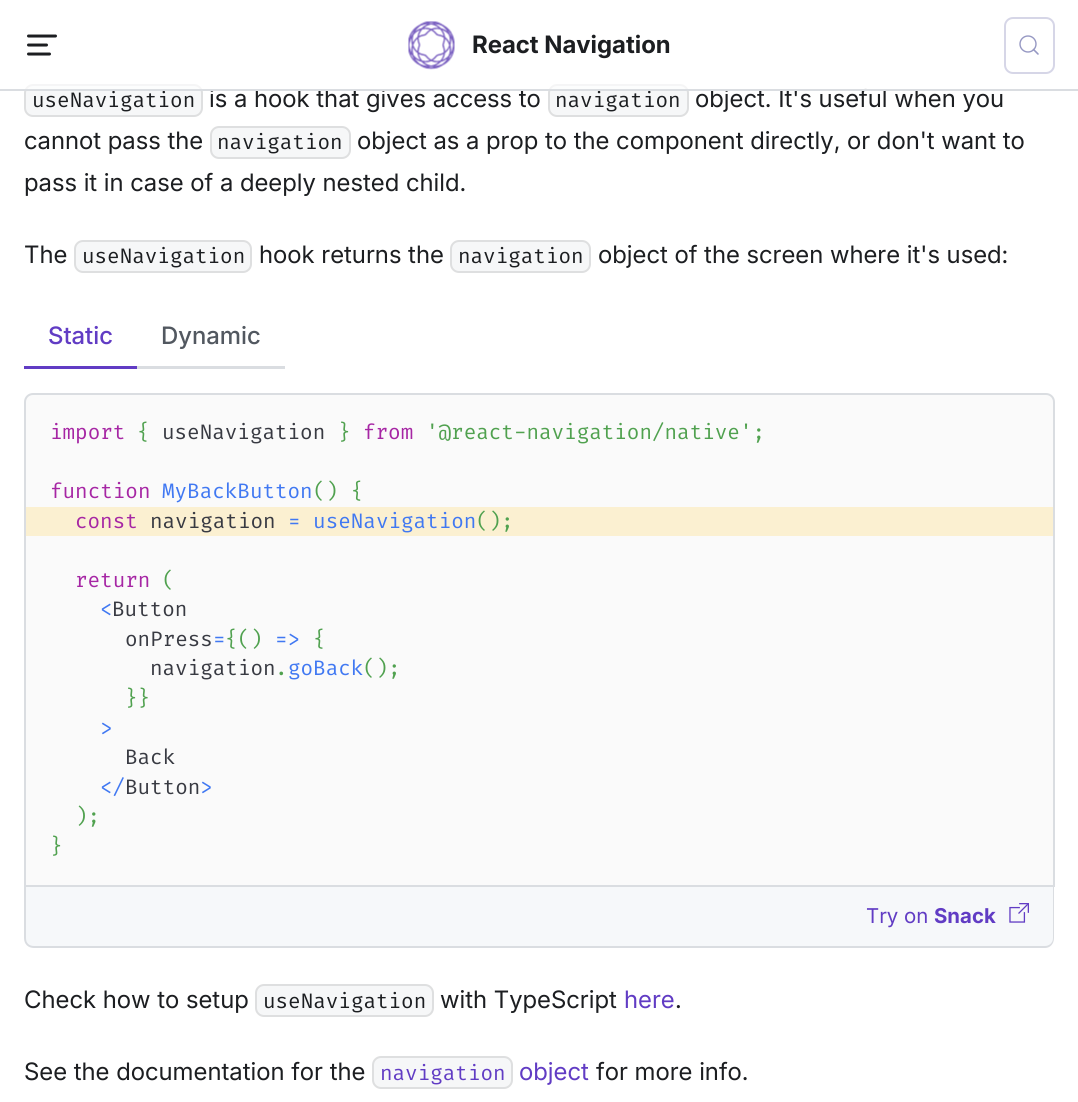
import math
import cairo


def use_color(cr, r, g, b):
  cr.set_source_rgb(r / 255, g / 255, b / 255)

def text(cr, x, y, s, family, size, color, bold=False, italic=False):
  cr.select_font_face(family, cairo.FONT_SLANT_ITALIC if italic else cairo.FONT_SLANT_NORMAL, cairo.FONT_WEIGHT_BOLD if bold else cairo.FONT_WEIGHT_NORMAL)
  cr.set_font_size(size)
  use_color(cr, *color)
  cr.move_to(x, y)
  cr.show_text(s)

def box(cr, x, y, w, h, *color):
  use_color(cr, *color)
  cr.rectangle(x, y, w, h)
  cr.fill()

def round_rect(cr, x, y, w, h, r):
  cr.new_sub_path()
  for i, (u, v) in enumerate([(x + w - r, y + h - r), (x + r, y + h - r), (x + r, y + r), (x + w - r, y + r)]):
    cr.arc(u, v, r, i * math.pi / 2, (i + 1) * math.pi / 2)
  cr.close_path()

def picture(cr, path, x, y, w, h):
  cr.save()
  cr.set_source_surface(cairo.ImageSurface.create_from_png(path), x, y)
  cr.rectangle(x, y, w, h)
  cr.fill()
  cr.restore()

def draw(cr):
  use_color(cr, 255, 255, 255)
  cr.paint()
  cr.new_path()
  cr.move_to(55.5, 36)
  cr.line_to(28.5, 36)
  cr.move_to(46.5, 45)
  cr.line_to(28.5, 45)
  cr.move_to(49.5, 54)
  cr.line_to(28.5, 54)
  use_color(cr, 28, 30, 33)
  cr.set_line_width(3)
  cr.set_line_cap(cairo.LINE_CAP_ROUND)
  cr.set_line_join(cairo.LINE_JOIN_ROUND)
  cr.stroke()
  picture(cr, "img_01.png", 408, 21, 47, 49)
  round_rect(cr, 1005, 18, 49, 55, 8)
  use_color(cr, 214, 214, 231)
  cr.set_line_width(2)
  cr.set_line_cap(cairo.LINE_CAP_BUTT)
  cr.set_line_join(cairo.LINE_JOIN_MITER)
  cr.stroke()
  cr.arc(1028, 44, 8, 0, 2 * math.pi)
  use_color(cr, 150, 152, 195)
  cr.set_line_width(1.4)
  cr.stroke()
  cr.new_path()
  cr.move_to(1038, 54)
  cr.line_to(1033.5, 49.5)
  cr.set_line_width(1.6)
  cr.set_line_cap(cairo.LINE_CAP_ROUND)
  cr.set_line_join(cairo.LINE_JOIN_ROUND)
  cr.stroke()
  use_color(cr, 246, 247, 248)
  round_rect(cr, 24, 84, 179, 33, 9)
  cr.fill()
  round_rect(cr, 25, 85, 177, 31, 8)
  cr.set_source_rgba(0, 0, 0, 0.1)
  cr.set_line_width(2)
  cr.set_line_cap(cairo.LINE_CAP_BUTT)
  cr.set_line_join(cairo.LINE_JOIN_MITER)
  cr.stroke()
  use_color(cr, 246, 247, 248)
  round_rect(cr, 548, 84, 141, 33, 9)
  cr.fill()
  round_rect(cr, 549, 85, 139, 31, 8)
  cr.set_source_rgba(0, 0, 0, 0.1)
  cr.stroke()
  use_color(cr, 246, 247, 248)
  round_rect(cr, 210, 126, 141, 33, 9)
  cr.fill()
  round_rect(cr, 211, 127, 139, 31, 8)
  cr.set_source_rgba(0, 0, 0, 0.1)
  cr.stroke()
  use_color(cr, 246, 247, 248)
  round_rect(cr, 74, 240, 178, 33, 9)
  cr.fill()
  round_rect(cr, 75, 241, 176, 31, 8)
  cr.set_source_rgba(0, 0, 0, 0.1)
  cr.stroke()
  use_color(cr, 246, 247, 248)
  round_rect(cr, 450, 240, 141, 33, 9)
  cr.fill()
  round_rect(cr, 451, 241, 139, 31, 8)
  cr.set_source_rgba(0, 0, 0, 0.1)
  cr.stroke()
  box(cr, 24, 366, 113, 3, 97, 60, 196)
  box(cr, 137, 366, 148, 3, 218, 221, 225)
  use_color(cr, 250, 250, 250)
  cr.new_path()
  cr.move_to(33, 394)
  cr.line_to(1046, 394)
  cr.curve_to(1050.5, 394, 1054, 397.5, 1054, 402)
  cr.line_to(1054, 886)
  cr.line_to(25, 886)
  cr.line_to(25, 402)
  cr.curve_to(25, 397.5, 28.5, 394, 33, 394)
  cr.close_path()
  cr.fill_preserve()
  use_color(cr, 218, 221, 225)
  cr.stroke()
  box(cr, 26, 507, 1027, 29, 251, 240, 209)
  use_color(cr, 246, 248, 250)
  cr.new_path()
  cr.move_to(26, 887)
  cr.line_to(1053, 887)
  cr.line_to(1053, 939)
  cr.curve_to(1053, 943.5, 1049.5, 947, 1045, 947)
  cr.line_to(34, 947)
  cr.curve_to(29.5, 947, 26, 943.5, 26, 939)
  cr.close_path()
  cr.fill()
  use_color(cr, 218, 221, 225)
  cr.set_fill_rule(cairo.FILL_RULE_EVEN_ODD)
  cr.new_path()
  cr.move_to(24, 886)
  cr.line_to(1054, 886)
  cr.line_to(1054, 938)
  cr.curve_to(1054, 944, 1050, 948, 1045, 948)
  cr.line_to(34, 948)
  cr.curve_to(28, 948, 24, 944, 24, 938)
  cr.close_path()
  cr.move_to(26, 886)
  cr.line_to(1053, 886)
  cr.line_to(1053, 938)
  cr.curve_to(1053, 943, 1049, 946, 1045, 946)
  cr.line_to(34, 946)
  cr.curve_to(29, 946, 26, 943, 26, 938)
  cr.close_path()
  cr.fill()
  picture(cr, "img_02.png", 1009, 903, 20, 20)
  use_color(cr, 246, 247, 248)
  round_rect(cr, 255, 984, 179, 33, 9)
  cr.fill()
  round_rect(cr, 256, 985, 177, 31, 8)
  cr.set_source_rgba(0, 0, 0, 0.1)
  cr.stroke()
  use_color(cr, 246, 247, 248)
  round_rect(cr, 372, 1056, 141, 33, 9)
  cr.fill()
  round_rect(cr, 373, 1057, 139, 31, 8)
  cr.set_source_rgba(0, 0, 0, 0.1)
  cr.stroke()
  text(cr, 472, 53, "React Navigation", "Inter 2", 24, (28, 30, 33), bold=True)
  text(cr, 32, 107, "useNavigation", "Fira Code", 20.4, (28, 30, 33))
  text(cr, 209, 107, "is a hook that gives access to", "Inter", 24, (28, 30, 33))
  text(cr, 555, 107, "navigation", "Fira Code", 20.4, (28, 30, 33))
  text(cr, 695, 107, "object. It's useful when you", "Inter", 24, (28, 30, 33))
  cr.set_source_rgba(1, 1, 1, 0.7)
  cr.rectangle(25, 84, 842, 5)
  cr.fill()
  box(cr, 0, 89, 1078, 2, 218, 221, 225)
  text(cr, 24, 149, "cannot pass the", "Inter", 24, (28, 30, 33))
  text(cr, 217, 149, "navigation", "Fira Code", 20.4, (28, 30, 33))
  text(cr, 357, 149, "object as a prop to the component directly, or don't want to", "Inter", 24, (28, 30, 33))
  text(cr, 24, 191, "pass it in case of a deeply nested child.", "Inter", 24, (28, 30, 33))
  text(cr, 24, 263, "The", "Inter", 24, (28, 30, 33))
  text(cr, 82, 263, "useNavigation", "Fira Code", 20.4, (28, 30, 33))
  text(cr, 259, 263, "hook returns the", "Inter", 24, (28, 30, 33))
  text(cr, 458, 263, "navigation", "Fira Code", 20.4, (28, 30, 33))
  text(cr, 598, 263, "object of the screen where it's used:", "Inter", 24, (28, 30, 33))
  text(cr, 48, 344, "Static", "Inter Medium", 24, (97, 60, 196))
  text(cr, 161, 344, "Dynamic", "Inter Medium", 24, (82, 88, 96))
  text(cr, 50, 439, "import", "Fira Code", 20.4, (166, 38, 164))
  text(cr, 137, 439, "{", "Fira Code", 20.4, (80, 161, 79))
  text(cr, 162, 439, "useNavigation", "Fira Code", 20.4, (56, 58, 66))
  text(cr, 338, 439, "}", "Fira Code", 20.4, (80, 161, 79))
  text(cr, 363, 439, "from", "Fira Code", 20.4, (166, 38, 164))
  text(cr, 426, 439, "'@react-navigation/native';", "Fira Code", 20.4, (80, 161, 79))
  text(cr, 50, 498, "function", "Fira Code", 20.4, (166, 38, 164))
  text(cr, 162, 498, "MyBackButton", "Fira Code", 20.4, (64, 120, 242))
  text(cr, 313, 498, "() {", "Fira Code", 20.4, (80, 161, 79))
  text(cr, 75, 528, "const", "Fira Code", 20.4, (166, 38, 164))
  text(cr, 150, 528, "navigation", "Fira Code", 20.4, (56, 58, 66))
  text(cr, 288, 528, "= useNavigation", "Fira Code", 20.4, (64, 120, 242))
  text(cr, 476, 528, "();", "Fira Code", 20.4, (80, 161, 79))
  text(cr, 75, 587, "return", "Fira Code", 20.4, (166, 38, 164))
  text(cr, 162, 587, "(", "Fira Code", 20.4, (80, 161, 79))
  text(cr, 100, 616, "<", "Fira Code", 20.4, (64, 120, 242))
  text(cr, 112, 616, "Button", "Fira Code", 20.4, (56, 58, 66))
  text(cr, 125, 646, "onPress", "Fira Code", 20.4, (56, 58, 66))
  text(cr, 213, 646, "=", "Fira Code", 20.4, (64, 120, 242))
  text(cr, 225, 646, "{()", "Fira Code", 20.4, (80, 161, 79))
  text(cr, 275, 646, "=>", "Fira Code", 20.4, (64, 120, 242))
  text(cr, 313, 646, "{", "Fira Code", 20.4, (80, 161, 79))
  text(cr, 150, 675, "navigation", "Fira Code", 20.4, (56, 58, 66))
  text(cr, 275, 675, ".", "Fira Code", 20.4, (80, 161, 79))
  text(cr, 288, 675, "goBack", "Fira Code", 20.4, (64, 120, 242))
  text(cr, 363, 675, "();", "Fira Code", 20.4, (80, 161, 79))
  text(cr, 125, 705, "}}", "Fira Code", 20.4, (80, 161, 79))
  text(cr, 100, 735, ">", "Fira Code", 20.4, (64, 120, 242))
  text(cr, 125, 764, "Back", "Fira Code", 20.4, (56, 58, 66))
  text(cr, 100, 794, "</", "Fira Code", 20.4, (64, 120, 242))
  text(cr, 125, 794, "Button", "Fira Code", 20.4, (56, 58, 66))
  text(cr, 200, 794, ">", "Fira Code", 20.4, (64, 120, 242))
  text(cr, 75, 823, ");", "Fira Code", 20.4, (80, 161, 79))
  text(cr, 50, 853, "}", "Fira Code", 20.4, (80, 161, 79))
  text(cr, 866, 923, "Try on", "Inter 2", 20.4, (97, 60, 196))
  text(cr, 934, 923, "Snack", "Inter", 20.4, (97, 60, 196), bold=True)
  text(cr, 24, 1008, "Check how to setup", "Inter", 24, (28, 30, 33))
  text(cr, 263, 1008, "useNavigation", "Fira Code", 20.4, (28, 30, 33))
  text(cr, 440, 1008, "with TypeScript", "Inter", 24, (28, 30, 33))
  text(cr, 624, 1008, "here", "Inter", 24, (97, 60, 196))
  text(cr, 675, 1008, ".", "Inter", 24, (28, 30, 33))
  text(cr, 24, 1080, "See the documentation for the", "Inter", 24, (28, 30, 33))
  text(cr, 380, 1080, "navigation", "Fira Code", 20.4, (97, 60, 196))
  text(cr, 519, 1080, "object", "Inter", 24, (97, 60, 196))
  text(cr, 596, 1080, "for more info.", "Inter", 24, (28, 30, 33))


surface = cairo.ImageSurface(cairo.FORMAT_RGB24, 1078, 1102)
cr = cairo.Context(surface)
options = cairo.FontOptions()
options.set_hint_metrics(cairo.HINT_METRICS_OFF)
options.set_hint_style(cairo.HINT_STYLE_NONE)
cr.set_font_options(options)
cr.set_miter_limit(4)
draw(cr)
surface.write_to_png("out.png")
